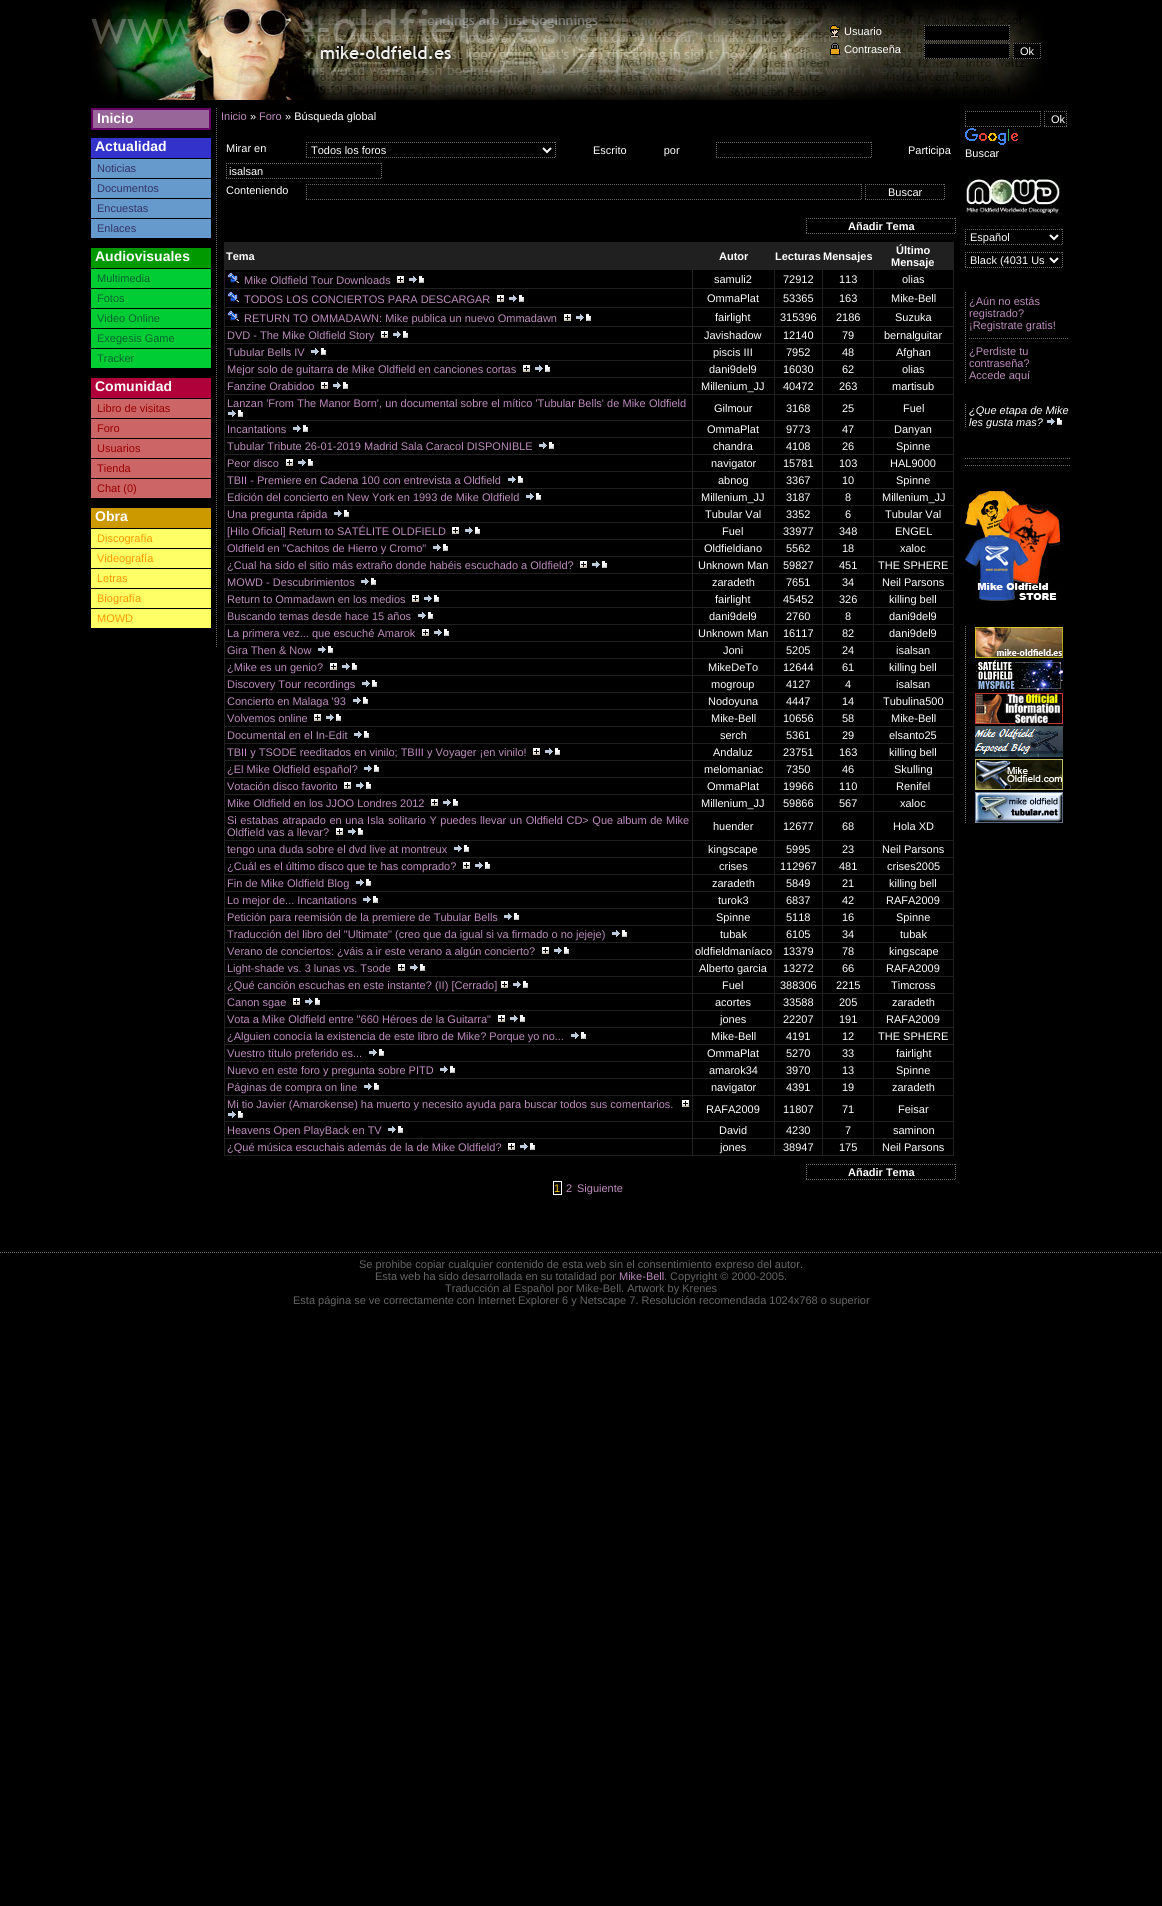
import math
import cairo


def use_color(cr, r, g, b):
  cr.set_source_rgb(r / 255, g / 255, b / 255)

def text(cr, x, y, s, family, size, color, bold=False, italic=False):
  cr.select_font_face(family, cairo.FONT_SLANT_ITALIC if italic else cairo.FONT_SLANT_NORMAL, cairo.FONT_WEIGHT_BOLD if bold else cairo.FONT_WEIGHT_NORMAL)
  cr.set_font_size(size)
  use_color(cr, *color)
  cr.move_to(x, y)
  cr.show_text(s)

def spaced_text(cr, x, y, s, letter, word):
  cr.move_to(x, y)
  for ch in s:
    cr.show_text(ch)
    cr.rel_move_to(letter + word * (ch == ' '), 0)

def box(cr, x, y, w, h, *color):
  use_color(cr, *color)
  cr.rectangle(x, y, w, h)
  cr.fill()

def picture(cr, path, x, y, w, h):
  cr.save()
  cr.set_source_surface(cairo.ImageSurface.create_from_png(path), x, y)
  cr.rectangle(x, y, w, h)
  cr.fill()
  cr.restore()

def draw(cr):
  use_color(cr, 0, 0, 0)
  cr.paint()
  picture(cr, "img_01.png", 91, 0, 952, 100)
  picture(cr, "img_02.png", 830, 25, 10, 12)
  box(cr, 924, 25, 86, 16, 0, 0, 0)
  cr.new_path()
  cr.move_to(924, 25.5)
  cr.line_to(1010, 25.5)
  use_color(cr, 102, 102, 102)
  cr.set_line_width(1)
  cr.set_dash([1, 1])
  cr.stroke()
  cr.new_path()
  cr.move_to(1009.5, 25)
  cr.line_to(1009.5, 41)
  cr.stroke()
  cr.new_path()
  cr.move_to(924, 40.5)
  cr.line_to(1010, 40.5)
  cr.stroke()
  cr.new_path()
  cr.move_to(924.5, 25)
  cr.line_to(924.5, 41)
  cr.stroke()
  picture(cr, "img_03.png", 830, 43, 10, 12)
  box(cr, 924, 43, 86, 16, 0, 0, 0)
  cr.new_path()
  cr.move_to(924, 43.5)
  cr.line_to(1010, 43.5)
  use_color(cr, 102, 102, 102)
  cr.stroke()
  cr.new_path()
  cr.move_to(1009.5, 43)
  cr.line_to(1009.5, 59)
  cr.stroke()
  cr.new_path()
  cr.move_to(924, 58.5)
  cr.line_to(1010, 58.5)
  cr.stroke()
  cr.new_path()
  cr.move_to(924.5, 43)
  cr.line_to(924.5, 59)
  cr.stroke()
  box(cr, 1013, 43, 28, 16, 0, 0, 0)
  cr.new_path()
  cr.move_to(1013, 43.5)
  cr.line_to(1041, 43.5)
  cr.move_to(1040.5, 43)
  cr.line_to(1040.5, 59)
  cr.move_to(1013, 58.5)
  cr.line_to(1041, 58.5)
  cr.move_to(1013.5, 43)
  cr.line_to(1013.5, 59)
  use_color(cr, 102, 102, 102)
  cr.stroke()
  cr.new_path()
  cr.move_to(216.5, 108)
  cr.line_to(216.5, 648)
  cr.stroke()
  use_color(cr, 153, 102, 153)
  cr.rectangle(92, 109, 118, 20)
  cr.fill_preserve()
  use_color(cr, 102, 0, 102)
  cr.set_line_width(2)
  cr.set_dash([])
  cr.stroke()
  box(cr, 91, 138, 120, 20, 51, 51, 204)
  box(cr, 91, 159, 120, 19, 102, 153, 204)
  box(cr, 91, 179, 120, 19, 102, 153, 204)
  box(cr, 91, 199, 120, 19, 102, 153, 204)
  box(cr, 91, 219, 120, 19, 102, 153, 204)
  box(cr, 91, 248, 120, 20, 0, 153, 0)
  box(cr, 91, 269, 120, 19, 0, 204, 51)
  box(cr, 91, 289, 120, 19, 0, 204, 51)
  box(cr, 91, 309, 120, 19, 0, 204, 51)
  box(cr, 91, 329, 120, 19, 0, 204, 51)
  box(cr, 91, 349, 120, 19, 0, 204, 51)
  box(cr, 91, 378, 120, 20, 177, 1, 59)
  box(cr, 91, 399, 120, 19, 204, 102, 102)
  box(cr, 91, 419, 120, 19, 204, 102, 102)
  box(cr, 91, 439, 120, 19, 204, 102, 102)
  box(cr, 91, 459, 120, 19, 204, 102, 102)
  box(cr, 91, 479, 120, 19, 204, 102, 102)
  box(cr, 91, 508, 120, 20, 204, 153, 0)
  box(cr, 91, 529, 120, 19, 255, 255, 102)
  box(cr, 91, 549, 120, 19, 255, 255, 102)
  box(cr, 91, 569, 120, 19, 255, 255, 102)
  box(cr, 91, 589, 120, 19, 255, 255, 102)
  box(cr, 91, 609, 120, 19, 255, 255, 102)
  cr.new_path()
  cr.move_to(306, 142.5)
  cr.line_to(556, 142.5)
  use_color(cr, 102, 102, 102)
  cr.set_line_width(1)
  cr.set_dash([1, 1])
  cr.stroke()
  cr.new_path()
  cr.move_to(555.5, 142)
  cr.line_to(555.5, 158)
  cr.stroke()
  cr.new_path()
  cr.move_to(306, 157.5)
  cr.line_to(556, 157.5)
  cr.stroke()
  cr.new_path()
  cr.move_to(306.5, 142)
  cr.line_to(306.5, 158)
  cr.stroke()
  cr.new_path()
  cr.move_to(543, 148)
  cr.line_to(547, 152)
  cr.line_to(551, 148)
  use_color(cr, 255, 255, 255)
  cr.set_line_width(2)
  cr.set_dash([])
  cr.stroke()
  cr.new_path()
  cr.move_to(716, 142.5)
  cr.line_to(872, 142.5)
  use_color(cr, 102, 102, 102)
  cr.set_line_width(1)
  cr.set_dash([1, 1])
  cr.stroke()
  cr.new_path()
  cr.move_to(871.5, 142)
  cr.line_to(871.5, 158)
  cr.stroke()
  cr.new_path()
  cr.move_to(716, 157.5)
  cr.line_to(872, 157.5)
  cr.stroke()
  cr.new_path()
  cr.move_to(716.5, 142)
  cr.line_to(716.5, 158)
  cr.stroke()
  cr.new_path()
  cr.move_to(226, 163.5)
  cr.line_to(382, 163.5)
  cr.stroke()
  cr.new_path()
  cr.move_to(381.5, 163)
  cr.line_to(381.5, 179)
  cr.stroke()
  cr.new_path()
  cr.move_to(226, 178.5)
  cr.line_to(382, 178.5)
  cr.stroke()
  cr.new_path()
  cr.move_to(226.5, 163)
  cr.line_to(226.5, 179)
  cr.stroke()
  cr.new_path()
  cr.move_to(306, 184.5)
  cr.line_to(862, 184.5)
  cr.stroke()
  cr.new_path()
  cr.move_to(861.5, 184)
  cr.line_to(861.5, 200)
  cr.stroke()
  cr.new_path()
  cr.move_to(306, 199.5)
  cr.line_to(862, 199.5)
  cr.stroke()
  cr.new_path()
  cr.move_to(306.5, 184)
  cr.line_to(306.5, 200)
  cr.stroke()
  cr.new_path()
  cr.move_to(865, 184.5)
  cr.line_to(945, 184.5)
  cr.stroke()
  cr.new_path()
  cr.move_to(944.5, 184)
  cr.line_to(944.5, 200)
  cr.stroke()
  cr.new_path()
  cr.move_to(865, 199.5)
  cr.line_to(945, 199.5)
  cr.stroke()
  cr.new_path()
  cr.move_to(865.5, 184)
  cr.line_to(865.5, 200)
  cr.stroke()
  cr.new_path()
  cr.move_to(806, 218.5)
  cr.line_to(956, 218.5)
  cr.stroke()
  cr.new_path()
  cr.move_to(955.5, 218)
  cr.line_to(955.5, 234)
  cr.stroke()
  cr.new_path()
  cr.move_to(806, 233.5)
  cr.line_to(956, 233.5)
  cr.stroke()
  cr.new_path()
  cr.move_to(806.5, 218)
  cr.line_to(806.5, 234)
  cr.stroke()
  box(cr, 224, 242, 730, 1, 32, 32, 32)
  box(cr, 953, 242, 1, 914, 32, 32, 32)
  box(cr, 224, 1155, 730, 1, 32, 32, 32)
  box(cr, 224, 242, 1, 914, 32, 32, 32)
  box(cr, 225, 243, 728, 27, 32, 32, 32)
  picture(cr, "img_04.png", 227, 272, 12, 11)
  picture(cr, "img_05.png", 397, 276, 7, 7)
  picture(cr, "img_06.png", 409, 276, 15, 7)
  box(cr, 224, 288, 730, 1, 32, 32, 32)
  picture(cr, "img_04.png", 227, 291, 12, 11)
  picture(cr, "img_05.png", 497, 295, 7, 7)
  picture(cr, "img_06.png", 509, 295, 15, 7)
  box(cr, 224, 307, 730, 1, 32, 32, 32)
  picture(cr, "img_04.png", 227, 310, 12, 11)
  picture(cr, "img_05.png", 564, 314, 7, 7)
  picture(cr, "img_06.png", 576, 314, 15, 7)
  box(cr, 224, 326, 730, 1, 32, 32, 32)
  picture(cr, "img_05.png", 381, 331, 7, 7)
  picture(cr, "img_06.png", 393, 331, 15, 7)
  box(cr, 224, 343, 730, 1, 32, 32, 32)
  picture(cr, "img_06.png", 311, 348, 15, 7)
  box(cr, 224, 360, 730, 1, 32, 32, 32)
  picture(cr, "img_05.png", 523, 365, 7, 7)
  picture(cr, "img_06.png", 535, 365, 15, 7)
  box(cr, 224, 377, 730, 1, 32, 32, 32)
  picture(cr, "img_05.png", 321, 382, 7, 7)
  picture(cr, "img_06.png", 333, 382, 15, 7)
  box(cr, 224, 394, 730, 1, 32, 32, 32)
  picture(cr, "img_06.png", 228, 410, 15, 7)
  box(cr, 224, 420, 730, 1, 32, 32, 32)
  picture(cr, "img_06.png", 293, 425, 15, 7)
  box(cr, 224, 437, 730, 1, 32, 32, 32)
  picture(cr, "img_06.png", 539, 442, 15, 7)
  box(cr, 224, 454, 730, 1, 32, 32, 32)
  picture(cr, "img_05.png", 286, 459, 7, 7)
  picture(cr, "img_06.png", 298, 459, 15, 7)
  box(cr, 224, 471, 730, 1, 32, 32, 32)
  picture(cr, "img_06.png", 508, 476, 15, 7)
  box(cr, 224, 488, 730, 1, 32, 32, 32)
  picture(cr, "img_06.png", 526, 493, 15, 7)
  box(cr, 224, 505, 730, 1, 32, 32, 32)
  picture(cr, "img_06.png", 334, 510, 15, 7)
  box(cr, 224, 522, 730, 1, 32, 32, 32)
  picture(cr, "img_05.png", 452, 527, 7, 7)
  picture(cr, "img_06.png", 465, 527, 15, 7)
  box(cr, 224, 539, 730, 1, 32, 32, 32)
  picture(cr, "img_06.png", 433, 544, 15, 7)
  box(cr, 224, 556, 730, 1, 32, 32, 32)
  picture(cr, "img_05.png", 580, 561, 7, 7)
  picture(cr, "img_06.png", 592, 561, 15, 7)
  box(cr, 224, 573, 730, 1, 32, 32, 32)
  picture(cr, "img_06.png", 361, 578, 15, 7)
  box(cr, 224, 590, 730, 1, 32, 32, 32)
  picture(cr, "img_05.png", 412, 595, 7, 7)
  picture(cr, "img_06.png", 424, 595, 15, 7)
  box(cr, 224, 607, 730, 1, 32, 32, 32)
  picture(cr, "img_06.png", 418, 612, 15, 7)
  box(cr, 224, 624, 730, 1, 32, 32, 32)
  picture(cr, "img_05.png", 422, 629, 7, 7)
  picture(cr, "img_06.png", 434, 629, 15, 7)
  box(cr, 224, 641, 730, 1, 32, 32, 32)
  picture(cr, "img_06.png", 318, 646, 15, 7)
  box(cr, 224, 658, 730, 1, 32, 32, 32)
  picture(cr, "img_05.png", 330, 663, 7, 7)
  picture(cr, "img_06.png", 342, 663, 15, 7)
  box(cr, 224, 675, 730, 1, 32, 32, 32)
  picture(cr, "img_06.png", 362, 680, 15, 7)
  box(cr, 224, 692, 730, 1, 32, 32, 32)
  picture(cr, "img_06.png", 353, 697, 15, 7)
  box(cr, 224, 709, 730, 1, 32, 32, 32)
  picture(cr, "img_05.png", 314, 714, 7, 7)
  picture(cr, "img_06.png", 326, 714, 15, 7)
  box(cr, 224, 726, 730, 1, 32, 32, 32)
  picture(cr, "img_06.png", 354, 731, 15, 7)
  box(cr, 224, 743, 730, 1, 32, 32, 32)
  picture(cr, "img_05.png", 533, 748, 7, 7)
  picture(cr, "img_06.png", 545, 748, 15, 7)
  box(cr, 224, 760, 730, 1, 32, 32, 32)
  picture(cr, "img_06.png", 364, 765, 15, 7)
  box(cr, 224, 777, 730, 1, 32, 32, 32)
  picture(cr, "img_05.png", 344, 782, 7, 7)
  picture(cr, "img_06.png", 356, 782, 15, 7)
  box(cr, 224, 794, 730, 1, 32, 32, 32)
  picture(cr, "img_05.png", 431, 799, 7, 7)
  picture(cr, "img_06.png", 443, 799, 15, 7)
  box(cr, 224, 811, 730, 1, 32, 32, 32)
  picture(cr, "img_05.png", 336, 828, 7, 7)
  picture(cr, "img_06.png", 348, 828, 15, 7)
  box(cr, 224, 840, 730, 1, 32, 32, 32)
  picture(cr, "img_06.png", 454, 845, 15, 7)
  box(cr, 224, 857, 730, 1, 32, 32, 32)
  picture(cr, "img_05.png", 463, 862, 7, 7)
  picture(cr, "img_06.png", 475, 862, 15, 7)
  box(cr, 224, 874, 730, 1, 32, 32, 32)
  picture(cr, "img_06.png", 356, 879, 15, 7)
  box(cr, 224, 891, 730, 1, 32, 32, 32)
  picture(cr, "img_06.png", 363, 896, 15, 7)
  box(cr, 224, 908, 730, 1, 32, 32, 32)
  picture(cr, "img_06.png", 504, 913, 15, 7)
  box(cr, 224, 925, 730, 1, 32, 32, 32)
  picture(cr, "img_06.png", 612, 930, 15, 7)
  box(cr, 224, 942, 730, 1, 32, 32, 32)
  picture(cr, "img_05.png", 542, 947, 7, 7)
  picture(cr, "img_06.png", 554, 947, 15, 7)
  box(cr, 224, 959, 730, 1, 32, 32, 32)
  picture(cr, "img_05.png", 398, 964, 7, 7)
  picture(cr, "img_06.png", 410, 964, 15, 7)
  box(cr, 224, 976, 730, 1, 32, 32, 32)
  picture(cr, "img_05.png", 501, 981, 7, 7)
  picture(cr, "img_06.png", 513, 981, 15, 7)
  box(cr, 224, 993, 730, 1, 32, 32, 32)
  picture(cr, "img_05.png", 293, 998, 7, 7)
  picture(cr, "img_06.png", 305, 998, 15, 7)
  box(cr, 224, 1010, 730, 1, 32, 32, 32)
  picture(cr, "img_05.png", 498, 1015, 7, 7)
  picture(cr, "img_06.png", 510, 1015, 15, 7)
  box(cr, 224, 1027, 730, 1, 32, 32, 32)
  picture(cr, "img_06.png", 571, 1032, 15, 7)
  box(cr, 224, 1044, 730, 1, 32, 32, 32)
  picture(cr, "img_06.png", 369, 1049, 15, 7)
  box(cr, 224, 1061, 730, 1, 32, 32, 32)
  picture(cr, "img_06.png", 440, 1066, 15, 7)
  box(cr, 224, 1078, 730, 1, 32, 32, 32)
  picture(cr, "img_06.png", 364, 1083, 15, 7)
  box(cr, 224, 1095, 730, 1, 32, 32, 32)
  picture(cr, "img_05.png", 682, 1100, 7, 7)
  picture(cr, "img_06.png", 228, 1111, 15, 7)
  box(cr, 224, 1121, 730, 1, 32, 32, 32)
  picture(cr, "img_06.png", 388, 1126, 15, 7)
  box(cr, 224, 1138, 730, 1, 32, 32, 32)
  picture(cr, "img_05.png", 508, 1143, 7, 7)
  picture(cr, "img_06.png", 520, 1143, 15, 7)
  box(cr, 692, 269, 1, 887, 32, 32, 32)
  box(cr, 774, 269, 1, 887, 32, 32, 32)
  box(cr, 822, 269, 1, 887, 32, 32, 32)
  box(cr, 873, 269, 1, 887, 32, 32, 32)
  cr.new_path()
  cr.move_to(806, 1164.5)
  cr.line_to(956, 1164.5)
  use_color(cr, 102, 102, 102)
  cr.stroke()
  cr.new_path()
  cr.move_to(955.5, 1164)
  cr.line_to(955.5, 1180)
  cr.stroke()
  cr.new_path()
  cr.move_to(806, 1179.5)
  cr.line_to(956, 1179.5)
  cr.stroke()
  cr.new_path()
  cr.move_to(806.5, 1164)
  cr.line_to(806.5, 1180)
  cr.stroke()
  cr.rectangle(553.5, 1181.5, 8, 13)
  use_color(cr, 255, 255, 255)
  cr.set_dash([])
  cr.stroke()
  cr.new_path()
  cr.move_to(965, 111.5)
  cr.line_to(1041, 111.5)
  use_color(cr, 102, 102, 102)
  cr.set_dash([1, 1])
  cr.stroke()
  cr.new_path()
  cr.move_to(1040.5, 111)
  cr.line_to(1040.5, 127)
  cr.stroke()
  cr.new_path()
  cr.move_to(965, 126.5)
  cr.line_to(1041, 126.5)
  cr.stroke()
  cr.new_path()
  cr.move_to(965.5, 111)
  cr.line_to(965.5, 127)
  cr.stroke()
  cr.new_path()
  cr.move_to(1044, 111.5)
  cr.line_to(1067, 111.5)
  cr.move_to(1066.5, 111)
  cr.line_to(1066.5, 127)
  cr.move_to(1044, 126.5)
  cr.line_to(1067, 126.5)
  cr.move_to(1044.5, 111)
  cr.line_to(1044.5, 127)
  cr.stroke()
  picture(cr, "img_07.png", 965, 128, 53, 17)
  picture(cr, "img_08.png", 965, 179, 95, 35)
  cr.new_path()
  cr.move_to(965, 229.5)
  cr.line_to(1063, 229.5)
  cr.stroke()
  cr.new_path()
  cr.move_to(1062.5, 229)
  cr.line_to(1062.5, 245)
  cr.stroke()
  cr.new_path()
  cr.move_to(965, 244.5)
  cr.line_to(1063, 244.5)
  cr.stroke()
  cr.new_path()
  cr.move_to(965.5, 229)
  cr.line_to(965.5, 245)
  cr.stroke()
  cr.new_path()
  cr.move_to(1050, 235)
  cr.line_to(1054, 239)
  cr.line_to(1058, 235)
  use_color(cr, 255, 255, 255)
  cr.set_line_width(2)
  cr.set_dash([])
  cr.stroke()
  cr.new_path()
  cr.move_to(965, 252.5)
  cr.line_to(1063, 252.5)
  use_color(cr, 102, 102, 102)
  cr.set_line_width(1)
  cr.set_dash([1, 1])
  cr.stroke()
  cr.new_path()
  cr.move_to(1062.5, 252)
  cr.line_to(1062.5, 268)
  cr.stroke()
  cr.new_path()
  cr.move_to(965, 267.5)
  cr.line_to(1063, 267.5)
  cr.stroke()
  cr.new_path()
  cr.move_to(965.5, 252)
  cr.line_to(965.5, 268)
  cr.stroke()
  cr.new_path()
  cr.move_to(1050, 258)
  cr.line_to(1054, 262)
  cr.line_to(1058, 258)
  use_color(cr, 255, 255, 255)
  cr.set_line_width(2)
  cr.set_dash([])
  cr.stroke()
  cr.new_path()
  cr.move_to(965.5, 292)
  cr.line_to(965.5, 384)
  use_color(cr, 102, 102, 102)
  cr.set_line_width(1)
  cr.set_dash([1, 1])
  cr.stroke()
  cr.new_path()
  cr.move_to(969, 338.5)
  cr.line_to(1068, 338.5)
  cr.stroke()
  cr.new_path()
  cr.move_to(965.5, 404)
  cr.line_to(965.5, 428)
  cr.stroke()
  picture(cr, "img_06.png", 1047, 418, 15, 7)
  cr.new_path()
  cr.move_to(965, 458.5)
  cr.line_to(1071, 458.5)
  cr.stroke()
  cr.new_path()
  cr.move_to(965, 465.5)
  cr.line_to(1071, 465.5)
  cr.stroke()
  picture(cr, "img_09.png", 965, 491, 95, 110)
  cr.new_path()
  cr.move_to(965.5, 626)
  cr.line_to(965.5, 824)
  cr.stroke()
  picture(cr, "img_10.png", 975, 627, 88, 31)
  picture(cr, "img_11.png", 975, 660, 88, 31)
  picture(cr, "img_12.png", 975, 693, 88, 31)
  picture(cr, "img_13.png", 975, 726, 88, 31)
  picture(cr, "img_14.png", 975, 759, 88, 31)
  picture(cr, "img_15.png", 975, 792, 88, 31)
  cr.new_path()
  cr.move_to(0, 1252.5)
  cr.line_to(1162, 1252.5)
  cr.stroke()
  text(cr, 844, 35, "Usuario", "Liberation Sans", 11, (255, 255, 255))
  text(cr, 844, 53, "Contraseña", "Liberation Sans", 11, (255, 255, 255))
  text(cr, 1020, 55, "Ok", "Liberation Sans", 11, (255, 255, 255))
  text(cr, 97, 123, "Inicio", "Liberation Sans", 14, (255, 255, 255), bold=True)
  text(cr, 95, 151, "Actualidad", "Liberation Sans", 14, (255, 255, 255), bold=True)
  text(cr, 97, 172, "Noticias", "Liberation Sans", 11, (51, 51, 102))
  text(cr, 97, 192, "Documentos", "Liberation Sans", 11, (51, 51, 102))
  text(cr, 97, 212, "Encuestas", "Liberation Sans", 11, (51, 51, 102))
  text(cr, 97, 232, "Enlaces", "Liberation Sans", 11, (51, 51, 102))
  text(cr, 95, 261, "Audiovisuales", "Liberation Sans", 14, (255, 255, 255), bold=True)
  text(cr, 97, 282, "Multimedia", "Liberation Sans", 11, (0, 102, 51))
  text(cr, 97, 302, "Fotos", "Liberation Sans", 11, (0, 102, 51))
  text(cr, 97, 322, "Video Online", "Liberation Sans", 11, (0, 102, 51))
  text(cr, 97, 342, "Exegesis Game", "Liberation Sans", 11, (0, 102, 51))
  text(cr, 97, 362, "Tracker", "Liberation Sans", 11, (0, 102, 51))
  text(cr, 95, 391, "Comunidad", "Liberation Sans", 14, (255, 255, 255), bold=True)
  text(cr, 97, 412, "Libro de visitas", "Liberation Sans", 11, (153, 0, 0))
  text(cr, 97, 432, "Foro", "Liberation Sans", 11, (153, 0, 0))
  text(cr, 97, 452, "Usuarios", "Liberation Sans", 11, (153, 0, 0))
  text(cr, 97, 472, "Tienda", "Liberation Sans", 11, (153, 0, 0))
  text(cr, 97, 492, "Chat (0)", "Liberation Sans", 11, (153, 0, 0))
  text(cr, 95, 521, "Obra", "Liberation Sans", 14, (255, 255, 255), bold=True)
  text(cr, 97, 542, "Discografía", "Liberation Sans", 11, (255, 153, 0))
  text(cr, 97, 562, "Videografía", "Liberation Sans", 11, (255, 153, 0))
  text(cr, 97, 582, "Letras", "Liberation Sans", 11, (255, 153, 0))
  text(cr, 97, 602, "Biografía", "Liberation Sans", 11, (255, 153, 0))
  text(cr, 97, 622, "MOWD", "Liberation Sans", 11, (255, 153, 0))
  text(cr, 221, 120, "Inicio", "Liberation Sans", 11, (189, 139, 189))
  text(cr, 250, 120, "»", "Liberation Sans", 11, (255, 255, 255))
  text(cr, 259, 120, "Foro", "Liberation Sans", 11, (189, 139, 189))
  text(cr, 285, 120, "» Búsqueda global", "Liberation Sans", 11, (255, 255, 255))
  text(cr, 226, 152, "Mirar en", "Liberation Sans", 11, (255, 255, 255))
  text(cr, 311, 154, "Todos los foros", "Liberation Sans", 11, (255, 255, 255))
  spaced_text(cr, 593, 154, "Escrito por", 0, 34)
  text(cr, 908, 154, "Participa", "Liberation Sans", 11, (255, 255, 255))
  text(cr, 229, 175, "isalsan", "Liberation Sans", 11, (255, 255, 255))
  text(cr, 226, 194, "Conteniendo", "Liberation Sans", 11, (255, 255, 255))
  text(cr, 888, 196, "Buscar", "Liberation Sans", 11, (255, 255, 255))
  text(cr, 848, 230, "Añadir Tema", "Liberation Sans", 11, (255, 255, 255), bold=True)
  text(cr, 226, 260, "Tema", "Liberation Sans", 11, (255, 255, 255), bold=True)
  text(cr, 719, 260, "Autor", "Liberation Sans", 11, (255, 255, 255), bold=True)
  text(cr, 775, 260, "Lecturas", "Liberation Sans", 11, (255, 255, 255), bold=True)
  text(cr, 823, 260, "Mensajes", "Liberation Sans", 11, (255, 255, 255), bold=True)
  text(cr, 896, 254, "Último", "Liberation Sans", 11, (255, 255, 255), bold=True)
  text(cr, 891, 266, "Mensaje", "Liberation Sans", 11, (255, 255, 255), bold=True)
  text(cr, 244, 284, "Mike Oldfield Tour Downloads", "Liberation Sans", 11, (189, 139, 189))
  text(cr, 714, 283, "samuli2", "Liberation Sans", 11, (255, 255, 255))
  text(cr, 783, 283, "72912", "Liberation Sans", 11, (255, 255, 255))
  text(cr, 839, 283, "113", "Liberation Sans", 11, (255, 255, 255))
  text(cr, 902, 283, "olias", "Liberation Sans", 11, (255, 255, 255))
  text(cr, 244, 303, "TODOS LOS CONCIERTOS PARA DESCARGAR", "Liberation Sans", 11, (189, 139, 189))
  text(cr, 707, 302, "OmmaPlat", "Liberation Sans", 11, (255, 255, 255))
  text(cr, 783, 302, "53365", "Liberation Sans", 11, (255, 255, 255))
  text(cr, 839, 302, "163", "Liberation Sans", 11, (255, 255, 255))
  text(cr, 891, 302, "Mike-Bell", "Liberation Sans", 11, (255, 255, 255))
  text(cr, 244, 322, "RETURN TO OMMADAWN: Mike publica un nuevo Ommadawn", "Liberation Sans", 11, (189, 139, 189))
  text(cr, 715, 321, "fairlight", "Liberation Sans", 11, (255, 255, 255))
  text(cr, 780, 321, "315396", "Liberation Sans", 11, (255, 255, 255))
  text(cr, 836, 321, "2186", "Liberation Sans", 11, (255, 255, 255))
  text(cr, 895, 321, "Suzuka", "Liberation Sans", 11, (255, 255, 255))
  text(cr, 227, 339, "DVD - The Mike Oldfield Story", "Liberation Sans", 11, (189, 139, 189))
  text(cr, 704, 339, "Javishadow", "Liberation Sans", 11, (255, 255, 255))
  text(cr, 783, 339, "12140", "Liberation Sans", 11, (255, 255, 255))
  text(cr, 842, 339, "79", "Liberation Sans", 11, (255, 255, 255))
  text(cr, 884, 339, "bernalguitar", "Liberation Sans", 11, (255, 255, 255))
  text(cr, 227, 356, "Tubular Bells IV", "Liberation Sans", 11, (189, 139, 189))
  text(cr, 713, 356, "piscis III", "Liberation Sans", 11, (255, 255, 255))
  text(cr, 786, 356, "7952", "Liberation Sans", 11, (255, 255, 255))
  text(cr, 842, 356, "48", "Liberation Sans", 11, (255, 255, 255))
  text(cr, 896, 356, "Afghan", "Liberation Sans", 11, (255, 255, 255))
  text(cr, 227, 373, "Mejor solo de guitarra de Mike Oldfield en canciones cortas", "Liberation Sans", 11, (189, 139, 189))
  text(cr, 709, 373, "dani9del9", "Liberation Sans", 11, (255, 255, 255))
  text(cr, 783, 373, "16030", "Liberation Sans", 11, (255, 255, 255))
  text(cr, 842, 373, "62", "Liberation Sans", 11, (255, 255, 255))
  text(cr, 902, 373, "olias", "Liberation Sans", 11, (255, 255, 255))
  text(cr, 227, 390, "Fanzine Orabidoo", "Liberation Sans", 11, (189, 139, 189))
  text(cr, 701, 390, "Millenium_JJ", "Liberation Sans", 11, (255, 255, 255))
  text(cr, 783, 390, "40472", "Liberation Sans", 11, (255, 255, 255))
  text(cr, 839, 390, "263", "Liberation Sans", 11, (255, 255, 255))
  text(cr, 892, 390, "martisub", "Liberation Sans", 11, (255, 255, 255))
  use_color(cr, 189, 139, 189)
  spaced_text(cr, 227, 407, "Lanzan 'From The Manor Born', un documental sobre el mítico 'Tubular Bells' de Mike Oldfield", 0, 0.1)
  text(cr, 714, 412, "Gilmour", "Liberation Sans", 11, (255, 255, 255))
  text(cr, 786, 412, "3168", "Liberation Sans", 11, (255, 255, 255))
  text(cr, 842, 412, "25", "Liberation Sans", 11, (255, 255, 255))
  text(cr, 903, 412, "Fuel", "Liberation Sans", 11, (255, 255, 255))
  text(cr, 227, 433, "Incantations", "Liberation Sans", 11, (189, 139, 189))
  text(cr, 707, 433, "OmmaPlat", "Liberation Sans", 11, (255, 255, 255))
  text(cr, 786, 433, "9773", "Liberation Sans", 11, (255, 255, 255))
  text(cr, 842, 433, "47", "Liberation Sans", 11, (255, 255, 255))
  text(cr, 894, 433, "Danyan", "Liberation Sans", 11, (255, 255, 255))
  text(cr, 227, 450, "Tubular Tribute 26-01-2019 Madrid Sala Caracol DISPONIBLE", "Liberation Sans", 11, (189, 139, 189))
  text(cr, 713, 450, "chandra", "Liberation Sans", 11, (255, 255, 255))
  text(cr, 786, 450, "4108", "Liberation Sans", 11, (255, 255, 255))
  text(cr, 842, 450, "26", "Liberation Sans", 11, (255, 255, 255))
  text(cr, 896, 450, "Spinne", "Liberation Sans", 11, (255, 255, 255))
  text(cr, 227, 467, "Peor disco", "Liberation Sans", 11, (189, 139, 189))
  text(cr, 711, 467, "navigator", "Liberation Sans", 11, (255, 255, 255))
  text(cr, 783, 467, "15781", "Liberation Sans", 11, (255, 255, 255))
  text(cr, 839, 467, "103", "Liberation Sans", 11, (255, 255, 255))
  text(cr, 890, 467, "HAL9000", "Liberation Sans", 11, (255, 255, 255))
  text(cr, 227, 484, "TBII - Premiere en Cadena 100 con entrevista a Oldfield", "Liberation Sans", 11, (189, 139, 189))
  text(cr, 718, 484, "abnog", "Liberation Sans", 11, (255, 255, 255))
  text(cr, 786, 484, "3367", "Liberation Sans", 11, (255, 255, 255))
  text(cr, 842, 484, "10", "Liberation Sans", 11, (255, 255, 255))
  text(cr, 896, 484, "Spinne", "Liberation Sans", 11, (255, 255, 255))
  text(cr, 227, 501, "Edición del concierto en New York en 1993 de Mike Oldfield", "Liberation Sans", 11, (189, 139, 189))
  text(cr, 701, 501, "Millenium_JJ", "Liberation Sans", 11, (255, 255, 255))
  text(cr, 786, 501, "3187", "Liberation Sans", 11, (255, 255, 255))
  text(cr, 845, 501, "8", "Liberation Sans", 11, (255, 255, 255))
  text(cr, 882, 501, "Millenium_JJ", "Liberation Sans", 11, (255, 255, 255))
  text(cr, 227, 518, "Una pregunta rápida", "Liberation Sans", 11, (189, 139, 189))
  text(cr, 705, 518, "Tubular Val", "Liberation Sans", 11, (255, 255, 255))
  text(cr, 786, 518, "3352", "Liberation Sans", 11, (255, 255, 255))
  text(cr, 845, 518, "6", "Liberation Sans", 11, (255, 255, 255))
  text(cr, 885, 518, "Tubular Val", "Liberation Sans", 11, (255, 255, 255))
  text(cr, 227, 535, "[Hilo Oficial] Return to SATÉLITE OLDFIELD", "Liberation Sans", 11, (189, 139, 189))
  text(cr, 722, 535, "Fuel", "Liberation Sans", 11, (255, 255, 255))
  text(cr, 783, 535, "33977", "Liberation Sans", 11, (255, 255, 255))
  text(cr, 839, 535, "348", "Liberation Sans", 11, (255, 255, 255))
  text(cr, 895, 535, "ENGEL", "Liberation Sans", 11, (255, 255, 255))
  text(cr, 227, 552, "Oldfield en \"Cachitos de Hierro y Cromo\"", "Liberation Sans", 11, (189, 139, 189))
  text(cr, 704, 552, "Oldfieldiano", "Liberation Sans", 11, (255, 255, 255))
  text(cr, 786, 552, "5562", "Liberation Sans", 11, (255, 255, 255))
  text(cr, 842, 552, "18", "Liberation Sans", 11, (255, 255, 255))
  text(cr, 900, 552, "xaloc", "Liberation Sans", 11, (255, 255, 255))
  text(cr, 227, 569, "¿Cual ha sido el sitio más extraño donde habéis escuchado a Oldfield?", "Liberation Sans", 11, (189, 139, 189))
  text(cr, 698, 569, "Unknown Man", "Liberation Sans", 11, (255, 255, 255))
  text(cr, 783, 569, "59827", "Liberation Sans", 11, (255, 255, 255))
  text(cr, 839, 569, "451", "Liberation Sans", 11, (255, 255, 255))
  text(cr, 878, 569, "THE SPHERE", "Liberation Sans", 11, (255, 255, 255))
  text(cr, 227, 586, "MOWD - Descubrimientos", "Liberation Sans", 11, (189, 139, 189))
  text(cr, 712, 586, "zaradeth", "Liberation Sans", 11, (255, 255, 255))
  text(cr, 786, 586, "7651", "Liberation Sans", 11, (255, 255, 255))
  text(cr, 842, 586, "34", "Liberation Sans", 11, (255, 255, 255))
  text(cr, 882, 586, "Neil Parsons", "Liberation Sans", 11, (255, 255, 255))
  text(cr, 227, 603, "Return to Ommadawn en los medios", "Liberation Sans", 11, (189, 139, 189))
  text(cr, 715, 603, "fairlight", "Liberation Sans", 11, (255, 255, 255))
  text(cr, 783, 603, "45452", "Liberation Sans", 11, (255, 255, 255))
  text(cr, 839, 603, "326", "Liberation Sans", 11, (255, 255, 255))
  text(cr, 889, 603, "killing bell", "Liberation Sans", 11, (255, 255, 255))
  text(cr, 227, 620, "Buscando temas desde hace 15 años", "Liberation Sans", 11, (189, 139, 189))
  text(cr, 709, 620, "dani9del9", "Liberation Sans", 11, (255, 255, 255))
  text(cr, 786, 620, "2760", "Liberation Sans", 11, (255, 255, 255))
  text(cr, 845, 620, "8", "Liberation Sans", 11, (255, 255, 255))
  text(cr, 889, 620, "dani9del9", "Liberation Sans", 11, (255, 255, 255))
  text(cr, 227, 637, "La primera vez... que escuché Amarok", "Liberation Sans", 11, (189, 139, 189))
  text(cr, 698, 637, "Unknown Man", "Liberation Sans", 11, (255, 255, 255))
  text(cr, 783, 637, "16117", "Liberation Sans", 11, (255, 255, 255))
  text(cr, 842, 637, "82", "Liberation Sans", 11, (255, 255, 255))
  text(cr, 889, 637, "dani9del9", "Liberation Sans", 11, (255, 255, 255))
  text(cr, 227, 654, "Gira Then & Now", "Liberation Sans", 11, (189, 139, 189))
  text(cr, 723, 654, "Joni", "Liberation Sans", 11, (255, 255, 255))
  text(cr, 786, 654, "5205", "Liberation Sans", 11, (255, 255, 255))
  text(cr, 842, 654, "24", "Liberation Sans", 11, (255, 255, 255))
  text(cr, 896, 654, "isalsan", "Liberation Sans", 11, (255, 255, 255))
  text(cr, 227, 671, "¿Mike es un genio?", "Liberation Sans", 11, (189, 139, 189))
  text(cr, 708, 671, "MikeDeTo", "Liberation Sans", 11, (255, 255, 255))
  text(cr, 783, 671, "12644", "Liberation Sans", 11, (255, 255, 255))
  text(cr, 842, 671, "61", "Liberation Sans", 11, (255, 255, 255))
  text(cr, 889, 671, "killing bell", "Liberation Sans", 11, (255, 255, 255))
  text(cr, 227, 688, "Discovery Tour recordings", "Liberation Sans", 11, (189, 139, 189))
  text(cr, 711, 688, "mogroup", "Liberation Sans", 11, (255, 255, 255))
  text(cr, 786, 688, "4127", "Liberation Sans", 11, (255, 255, 255))
  text(cr, 845, 688, "4", "Liberation Sans", 11, (255, 255, 255))
  text(cr, 896, 688, "isalsan", "Liberation Sans", 11, (255, 255, 255))
  text(cr, 227, 705, "Concierto en Malaga '93", "Liberation Sans", 11, (189, 139, 189))
  text(cr, 708, 705, "Nodoyuna", "Liberation Sans", 11, (255, 255, 255))
  text(cr, 786, 705, "4447", "Liberation Sans", 11, (255, 255, 255))
  text(cr, 842, 705, "14", "Liberation Sans", 11, (255, 255, 255))
  text(cr, 883, 705, "Tubulina500", "Liberation Sans", 11, (255, 255, 255))
  text(cr, 227, 722, "Volvemos online", "Liberation Sans", 11, (189, 139, 189))
  text(cr, 711, 722, "Mike-Bell", "Liberation Sans", 11, (255, 255, 255))
  text(cr, 783, 722, "10656", "Liberation Sans", 11, (255, 255, 255))
  text(cr, 842, 722, "58", "Liberation Sans", 11, (255, 255, 255))
  text(cr, 891, 722, "Mike-Bell", "Liberation Sans", 11, (255, 255, 255))
  text(cr, 227, 739, "Documental en el In-Edit", "Liberation Sans", 11, (189, 139, 189))
  text(cr, 720, 739, "serch", "Liberation Sans", 11, (255, 255, 255))
  text(cr, 786, 739, "5361", "Liberation Sans", 11, (255, 255, 255))
  text(cr, 842, 739, "29", "Liberation Sans", 11, (255, 255, 255))
  text(cr, 889, 739, "elsanto25", "Liberation Sans", 11, (255, 255, 255))
  text(cr, 227, 756, "TBII y TSODE reeditados en vinilo; TBIII y Voyager ¡en vinilo!", "Liberation Sans", 11, (189, 139, 189))
  text(cr, 713, 756, "Andaluz", "Liberation Sans", 11, (255, 255, 255))
  text(cr, 783, 756, "23751", "Liberation Sans", 11, (255, 255, 255))
  text(cr, 839, 756, "163", "Liberation Sans", 11, (255, 255, 255))
  text(cr, 889, 756, "killing bell", "Liberation Sans", 11, (255, 255, 255))
  text(cr, 227, 773, "¿El Mike Oldfield español?", "Liberation Sans", 11, (189, 139, 189))
  text(cr, 704, 773, "melomaniac", "Liberation Sans", 11, (255, 255, 255))
  text(cr, 786, 773, "7350", "Liberation Sans", 11, (255, 255, 255))
  text(cr, 842, 773, "46", "Liberation Sans", 11, (255, 255, 255))
  text(cr, 894, 773, "Skulling", "Liberation Sans", 11, (255, 255, 255))
  text(cr, 227, 790, "Votación disco favorito", "Liberation Sans", 11, (189, 139, 189))
  text(cr, 707, 790, "OmmaPlat", "Liberation Sans", 11, (255, 255, 255))
  text(cr, 783, 790, "19966", "Liberation Sans", 11, (255, 255, 255))
  text(cr, 839, 790, "110", "Liberation Sans", 11, (255, 255, 255))
  text(cr, 896, 790, "Renifel", "Liberation Sans", 11, (255, 255, 255))
  text(cr, 227, 807, "Mike Oldfield en los JJOO Londres 2012", "Liberation Sans", 11, (189, 139, 189))
  text(cr, 701, 807, "Millenium_JJ", "Liberation Sans", 11, (255, 255, 255))
  text(cr, 783, 807, "59866", "Liberation Sans", 11, (255, 255, 255))
  text(cr, 839, 807, "567", "Liberation Sans", 11, (255, 255, 255))
  text(cr, 900, 807, "xaloc", "Liberation Sans", 11, (255, 255, 255))
  use_color(cr, 189, 139, 189)
  spaced_text(cr, 227, 824, "Si estabas atrapado en una Isla", 0, 0.5)
  spaced_text(cr, 388, 824, "solitario Y puedes llevar un Oldfield CD> Que album de Mike", 0, 0.5)
  text(cr, 227, 836, "Oldfield vas a llevar?", "Liberation Sans", 11, (189, 139, 189))
  text(cr, 713, 830, "huender", "Liberation Sans", 11, (255, 255, 255))
  text(cr, 783, 830, "12677", "Liberation Sans", 11, (255, 255, 255))
  text(cr, 842, 830, "68", "Liberation Sans", 11, (255, 255, 255))
  text(cr, 893, 830, "Hola XD", "Liberation Sans", 11, (255, 255, 255))
  text(cr, 227, 853, "tengo una duda sobre el dvd live at montreux", "Liberation Sans", 11, (189, 139, 189))
  text(cr, 708, 853, "kingscape", "Liberation Sans", 11, (255, 255, 255))
  text(cr, 786, 853, "5995", "Liberation Sans", 11, (255, 255, 255))
  text(cr, 842, 853, "23", "Liberation Sans", 11, (255, 255, 255))
  text(cr, 882, 853, "Neil Parsons", "Liberation Sans", 11, (255, 255, 255))
  text(cr, 227, 870, "¿Cuál es el último disco que te has comprado?", "Liberation Sans", 11, (189, 139, 189))
  text(cr, 719, 870, "crises", "Liberation Sans", 11, (255, 255, 255))
  text(cr, 780, 870, "112967", "Liberation Sans", 11, (255, 255, 255))
  text(cr, 839, 870, "481", "Liberation Sans", 11, (255, 255, 255))
  text(cr, 887, 870, "crises2005", "Liberation Sans", 11, (255, 255, 255))
  text(cr, 227, 887, "Fin de Mike Oldfield Blog", "Liberation Sans", 11, (189, 139, 189))
  text(cr, 712, 887, "zaradeth", "Liberation Sans", 11, (255, 255, 255))
  text(cr, 786, 887, "5849", "Liberation Sans", 11, (255, 255, 255))
  text(cr, 842, 887, "21", "Liberation Sans", 11, (255, 255, 255))
  text(cr, 889, 887, "killing bell", "Liberation Sans", 11, (255, 255, 255))
  text(cr, 227, 904, "Lo mejor de... Incantations", "Liberation Sans", 11, (189, 139, 189))
  text(cr, 718, 904, "turok3", "Liberation Sans", 11, (255, 255, 255))
  text(cr, 786, 904, "6837", "Liberation Sans", 11, (255, 255, 255))
  text(cr, 842, 904, "42", "Liberation Sans", 11, (255, 255, 255))
  text(cr, 886, 904, "RAFA2009", "Liberation Sans", 11, (255, 255, 255))
  text(cr, 227, 921, "Petición para reemisión de la premiere de Tubular Bells", "Liberation Sans", 11, (189, 139, 189))
  text(cr, 716, 921, "Spinne", "Liberation Sans", 11, (255, 255, 255))
  text(cr, 786, 921, "5118", "Liberation Sans", 11, (255, 255, 255))
  text(cr, 842, 921, "16", "Liberation Sans", 11, (255, 255, 255))
  text(cr, 896, 921, "Spinne", "Liberation Sans", 11, (255, 255, 255))
  text(cr, 227, 938, "Traducción del libro del \"Ultimate\" (creo que da igual si va firmado o no jejeje)", "Liberation Sans", 11, (189, 139, 189))
  text(cr, 720, 938, "tubak", "Liberation Sans", 11, (255, 255, 255))
  text(cr, 786, 938, "6105", "Liberation Sans", 11, (255, 255, 255))
  text(cr, 842, 938, "34", "Liberation Sans", 11, (255, 255, 255))
  text(cr, 900, 938, "tubak", "Liberation Sans", 11, (255, 255, 255))
  text(cr, 227, 955, "Verano de conciertos: ¿váis a ir este verano a algún concierto?", "Liberation Sans", 11, (189, 139, 189))
  text(cr, 695, 955, "oldfieldmaníaco", "Liberation Sans", 11, (255, 255, 255))
  text(cr, 783, 955, "13379", "Liberation Sans", 11, (255, 255, 255))
  text(cr, 842, 955, "78", "Liberation Sans", 11, (255, 255, 255))
  text(cr, 889, 955, "kingscape", "Liberation Sans", 11, (255, 255, 255))
  text(cr, 227, 972, "Light-shade vs. 3 lunas vs. Tsode", "Liberation Sans", 11, (189, 139, 189))
  text(cr, 699, 972, "Alberto garcia", "Liberation Sans", 11, (255, 255, 255))
  text(cr, 783, 972, "13272", "Liberation Sans", 11, (255, 255, 255))
  text(cr, 842, 972, "66", "Liberation Sans", 11, (255, 255, 255))
  text(cr, 886, 972, "RAFA2009", "Liberation Sans", 11, (255, 255, 255))
  text(cr, 227, 989, "¿Qué canción escuchas en este instante? (II) [Cerrado]", "Liberation Sans", 11, (189, 139, 189))
  text(cr, 722, 989, "Fuel", "Liberation Sans", 11, (255, 255, 255))
  text(cr, 780, 989, "388306", "Liberation Sans", 11, (255, 255, 255))
  text(cr, 836, 989, "2215", "Liberation Sans", 11, (255, 255, 255))
  text(cr, 891, 989, "Timcross", "Liberation Sans", 11, (255, 255, 255))
  text(cr, 227, 1006, "Canon sgae", "Liberation Sans", 11, (189, 139, 189))
  text(cr, 715, 1006, "acortes", "Liberation Sans", 11, (255, 255, 255))
  text(cr, 783, 1006, "33588", "Liberation Sans", 11, (255, 255, 255))
  text(cr, 839, 1006, "205", "Liberation Sans", 11, (255, 255, 255))
  text(cr, 892, 1006, "zaradeth", "Liberation Sans", 11, (255, 255, 255))
  text(cr, 227, 1023, "Vota a Mike Oldfield entre \"660 Héroes de la Guitarra\"", "Liberation Sans", 11, (189, 139, 189))
  text(cr, 720, 1023, "jones", "Liberation Sans", 11, (255, 255, 255))
  text(cr, 783, 1023, "22207", "Liberation Sans", 11, (255, 255, 255))
  text(cr, 839, 1023, "191", "Liberation Sans", 11, (255, 255, 255))
  text(cr, 886, 1023, "RAFA2009", "Liberation Sans", 11, (255, 255, 255))
  text(cr, 227, 1040, "¿Alguien conocía la existencia de este libro de Mike? Porque yo no...", "Liberation Sans", 11, (189, 139, 189))
  text(cr, 711, 1040, "Mike-Bell", "Liberation Sans", 11, (255, 255, 255))
  text(cr, 786, 1040, "4191", "Liberation Sans", 11, (255, 255, 255))
  text(cr, 842, 1040, "12", "Liberation Sans", 11, (255, 255, 255))
  text(cr, 878, 1040, "THE SPHERE", "Liberation Sans", 11, (255, 255, 255))
  text(cr, 227, 1057, "Vuestro título preferido es...", "Liberation Sans", 11, (189, 139, 189))
  text(cr, 707, 1057, "OmmaPlat", "Liberation Sans", 11, (255, 255, 255))
  text(cr, 786, 1057, "5270", "Liberation Sans", 11, (255, 255, 255))
  text(cr, 842, 1057, "33", "Liberation Sans", 11, (255, 255, 255))
  text(cr, 896, 1057, "fairlight", "Liberation Sans", 11, (255, 255, 255))
  text(cr, 227, 1074, "Nuevo en este foro y pregunta sobre PITD", "Liberation Sans", 11, (189, 139, 189))
  text(cr, 709, 1074, "amarok34", "Liberation Sans", 11, (255, 255, 255))
  text(cr, 786, 1074, "3970", "Liberation Sans", 11, (255, 255, 255))
  text(cr, 842, 1074, "13", "Liberation Sans", 11, (255, 255, 255))
  text(cr, 896, 1074, "Spinne", "Liberation Sans", 11, (255, 255, 255))
  text(cr, 227, 1091, "Páginas de compra on line", "Liberation Sans", 11, (189, 139, 189))
  text(cr, 711, 1091, "navigator", "Liberation Sans", 11, (255, 255, 255))
  text(cr, 786, 1091, "4391", "Liberation Sans", 11, (255, 255, 255))
  text(cr, 842, 1091, "19", "Liberation Sans", 11, (255, 255, 255))
  text(cr, 892, 1091, "zaradeth", "Liberation Sans", 11, (255, 255, 255))
  text(cr, 227, 1108, "Mi tio Javier (Amarokense) ha muerto y necesito ayuda para buscar todos sus comentarios.", "Liberation Sans", 11, (189, 139, 189))
  text(cr, 706, 1113, "RAFA2009", "Liberation Sans", 11, (255, 255, 255))
  text(cr, 783, 1113, "11807", "Liberation Sans", 11, (255, 255, 255))
  text(cr, 842, 1113, "71", "Liberation Sans", 11, (255, 255, 255))
  text(cr, 898, 1113, "Feisar", "Liberation Sans", 11, (255, 255, 255))
  text(cr, 227, 1134, "Heavens Open PlayBack en TV", "Liberation Sans", 11, (189, 139, 189))
  text(cr, 719, 1134, "David", "Liberation Sans", 11, (255, 255, 255))
  text(cr, 786, 1134, "4230", "Liberation Sans", 11, (255, 255, 255))
  text(cr, 845, 1134, "7", "Liberation Sans", 11, (255, 255, 255))
  text(cr, 893, 1134, "saminon", "Liberation Sans", 11, (255, 255, 255))
  text(cr, 227, 1151, "¿Qué música escuchais además de la de Mike Oldfield?", "Liberation Sans", 11, (189, 139, 189))
  text(cr, 720, 1151, "jones", "Liberation Sans", 11, (255, 255, 255))
  text(cr, 783, 1151, "38947", "Liberation Sans", 11, (255, 255, 255))
  text(cr, 839, 1151, "175", "Liberation Sans", 11, (255, 255, 255))
  text(cr, 882, 1151, "Neil Parsons", "Liberation Sans", 11, (255, 255, 255))
  text(cr, 848, 1176, "Añadir Tema", "Liberation Sans", 11, (255, 255, 255), bold=True)
  text(cr, 554, 1192, "1", "Liberation Sans", 11, (255, 204, 0))
  text(cr, 566, 1192, "2", "Liberation Sans", 11, (189, 139, 189))
  text(cr, 577, 1192, "Siguiente", "Liberation Sans", 11, (189, 139, 189))
  text(cr, 1051, 123, "Ok", "Liberation Sans", 11, (255, 255, 255))
  text(cr, 965, 157, "Buscar", "Liberation Sans", 11, (255, 255, 255))
  text(cr, 970, 241, "Español", "Liberation Sans", 11, (255, 255, 255))
  text(cr, 970, 264, "Black (4031 Us", "Liberation Sans", 11, (255, 255, 255))
  text(cr, 969, 305, "¿Aún no estás", "Liberation Sans", 11, (189, 139, 189))
  text(cr, 969, 317, "registrado?", "Liberation Sans", 11, (189, 139, 189))
  text(cr, 969, 329, "¡Registrate gratis!", "Liberation Sans", 11, (189, 139, 189))
  text(cr, 969, 355, "¿Perdiste tu", "Liberation Sans", 11, (189, 139, 189))
  text(cr, 969, 367, "contraseña?", "Liberation Sans", 11, (189, 139, 189))
  text(cr, 969, 379, "Accede aquí", "Liberation Sans", 11, (189, 139, 189))
  text(cr, 969, 414, "¿Que etapa de Mike", "Liberation Sans", 11, (255, 255, 255), italic=True)
  text(cr, 969, 426, "les gusta mas?", "Liberation Sans", 11, (255, 255, 255), italic=True)
  text(cr, 359, 1268, "Se prohibe copiar cualquier contenido de esta web sin el consentimiento expreso del autor.", "Liberation Sans", 11, (102, 102, 102))
  text(cr, 375, 1280, "Esta web ha sido desarrollada en su totalidad por", "Liberation Sans", 11, (102, 102, 102))
  text(cr, 619, 1280, "Mike-Bell", "Liberation Sans", 11, (189, 139, 189))
  text(cr, 664, 1280, ". Copyright © 2000-2005.", "Liberation Sans", 11, (102, 102, 102))
  text(cr, 445, 1292, "Traducción al Español por Mike-Bell. Artwork by Krenes", "Liberation Sans", 11, (102, 102, 102))
  text(cr, 293, 1304, "Esta página se ve correctamente con Internet Explorer 6 y Netscape 7. Resolución recomendada 1024x768 o superior", "Liberation Sans", 11, (102, 102, 102))


surface = cairo.ImageSurface(cairo.FORMAT_RGB24, 1162, 1906)
cr = cairo.Context(surface)
options = cairo.FontOptions()
options.set_hint_metrics(cairo.HINT_METRICS_OFF)
options.set_hint_style(cairo.HINT_STYLE_NONE)
cr.set_font_options(options)
cr.set_miter_limit(4)
draw(cr)
surface.write_to_png("out.png")
